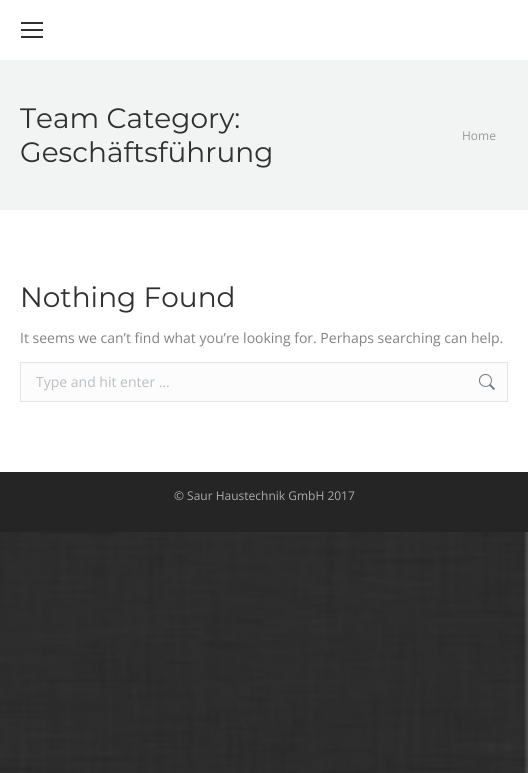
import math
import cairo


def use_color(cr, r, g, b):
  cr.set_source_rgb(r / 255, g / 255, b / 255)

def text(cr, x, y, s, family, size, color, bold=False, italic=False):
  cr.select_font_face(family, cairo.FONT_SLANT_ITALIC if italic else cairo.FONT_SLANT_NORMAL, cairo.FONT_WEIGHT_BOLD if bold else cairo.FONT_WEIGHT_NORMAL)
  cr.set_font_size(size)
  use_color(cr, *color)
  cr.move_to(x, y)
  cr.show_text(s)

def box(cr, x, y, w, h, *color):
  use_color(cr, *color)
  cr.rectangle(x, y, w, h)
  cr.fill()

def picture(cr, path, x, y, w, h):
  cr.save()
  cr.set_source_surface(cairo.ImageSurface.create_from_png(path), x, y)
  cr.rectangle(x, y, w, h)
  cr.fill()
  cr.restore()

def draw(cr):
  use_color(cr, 255, 255, 255)
  cr.paint()
  picture(cr, "img_01.png", 0, 532, 528, 241)
  box(cr, 21, 22, 22, 2, 48, 48, 48)
  box(cr, 21, 29, 22, 2, 48, 48, 48)
  box(cr, 21, 36, 22, 2, 48, 48, 48)
  box(cr, 0, 60, 528, 150, 242, 243, 243)
  use_color(cr, 252, 252, 252)
  cr.rectangle(20.5, 362.5, 487, 39)
  cr.fill_preserve()
  use_color(cr, 228, 229, 231)
  cr.set_line_width(1)
  cr.stroke()
  picture(cr, "img_02.png", 479, 374, 16, 16)
  box(cr, 0, 472, 528, 60, 37, 37, 37)
  text(cr, 20, 128, "Team Category:", "Montserrat", 28, (48, 48, 48))
  text(cr, 20, 162, "Geschäftsführung", "Montserrat", 28, (48, 48, 48))
  text(cr, 462, 140, "Home", "Open Sans", 12, (153, 153, 153))
  text(cr, 20, 307, "Nothing Found", "Montserrat", 28, (48, 48, 48))
  text(cr, 20, 343, "It seems we can’t find what you’re looking for. Perhaps searching can help.", "Open Sans", 14, (130, 130, 130))
  text(cr, 36, 387, "Type and hit enter …", "Open Sans", 14, (186, 189, 193))
  text(cr, 174, 500, "© Saur Haustechnik GmbH 2017", "Open Sans", 12, (170, 170, 170))


surface = cairo.ImageSurface(cairo.FORMAT_RGB24, 528, 773)
cr = cairo.Context(surface)
options = cairo.FontOptions()
options.set_hint_metrics(cairo.HINT_METRICS_OFF)
options.set_hint_style(cairo.HINT_STYLE_NONE)
cr.set_font_options(options)
cr.set_miter_limit(4)
draw(cr)
surface.write_to_png("out.png")
